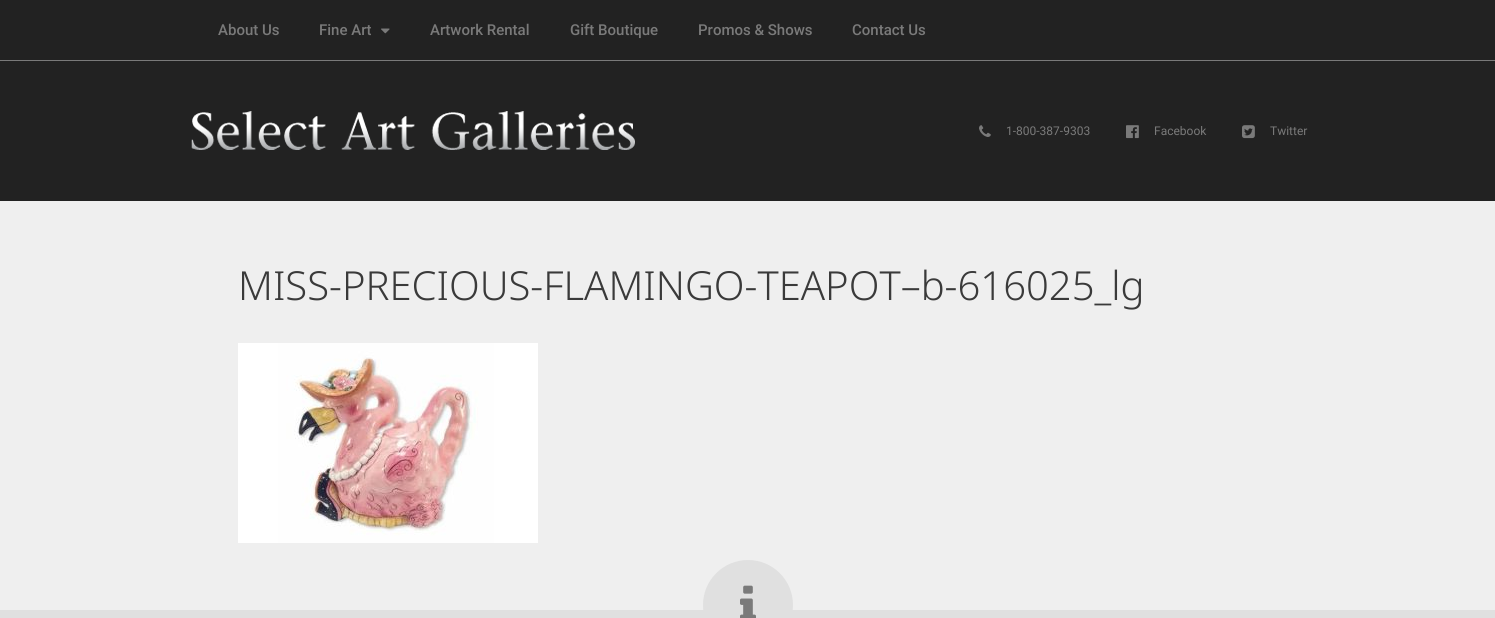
import math
import cairo


def use_color(cr, r, g, b):
  cr.set_source_rgb(r / 255, g / 255, b / 255)

def text(cr, x, y, s, family, size, color, bold=False, italic=False):
  cr.select_font_face(family, cairo.FONT_SLANT_ITALIC if italic else cairo.FONT_SLANT_NORMAL, cairo.FONT_WEIGHT_BOLD if bold else cairo.FONT_WEIGHT_NORMAL)
  cr.set_font_size(size)
  use_color(cr, *color)
  cr.move_to(x, y)
  cr.show_text(s)

def box(cr, x, y, w, h, *color):
  use_color(cr, *color)
  cr.rectangle(x, y, w, h)
  cr.fill()

def picture(cr, path, x, y, w, h):
  cr.save()
  cr.set_source_surface(cairo.ImageSurface.create_from_png(path), x, y)
  cr.rectangle(x, y, w, h)
  cr.fill()
  cr.restore()

def draw(cr):
  use_color(cr, 239, 239, 239)
  cr.paint()
  box(cr, 0, 0, 1495, 60, 34, 34, 34)
  box(cr, 0, 60, 1495, 1, 122, 122, 122)
  picture(cr, "img_01.png", 381, 28, 9, 6)
  box(cr, 0, 61, 1495, 140, 34, 34, 34)
  picture(cr, "img_02.png", 191, 111, 444, 39)
  picture(cr, "img_03.png", 979, 125, 12, 12)
  picture(cr, "img_04.png", 1126, 125, 13, 14)
  picture(cr, "img_05.png", 1242, 125, 13, 14)
  picture(cr, "img_06.png", 238, 343, 300, 200)
  box(cr, 0, 610, 1495, 8, 224, 224, 224)
  cr.arc(748, 605, 45, 0, 2 * math.pi)
  cr.fill()
  picture(cr, "img_07.png", 740, 585, 16, 33)
  text(cr, 218, 35, "About Us", "Roboto Medium", 15, (122, 122, 122))
  text(cr, 319, 35, "Fine Art", "Roboto Medium", 15, (122, 122, 122))
  text(cr, 430, 35, "Artwork Rental", "Roboto Medium", 15, (122, 122, 122))
  text(cr, 570, 35, "Gift Boutique", "Roboto Medium", 15, (122, 122, 122))
  text(cr, 698, 35, "Promos & Shows", "Roboto Medium", 15, (122, 122, 122))
  text(cr, 852, 35, "Contact Us", "Roboto Medium", 15, (122, 122, 122))
  text(cr, 1006, 135, "1-800-387-9303", "Roboto", 12, (122, 122, 122))
  text(cr, 1154, 135, "Facebook", "Roboto", 12, (122, 122, 122))
  text(cr, 1270, 135, "Twitter", "Roboto", 12, (122, 122, 122))
  text(cr, 238, 300, "MISS-PRECIOUS-FLAMINGO-TEAPOT–b-616025_lg", "Noto Sans Light", 40, (58, 58, 58))


surface = cairo.ImageSurface(cairo.FORMAT_RGB24, 1495, 618)
cr = cairo.Context(surface)
options = cairo.FontOptions()
options.set_hint_metrics(cairo.HINT_METRICS_OFF)
options.set_hint_style(cairo.HINT_STYLE_NONE)
cr.set_font_options(options)
cr.set_miter_limit(4)
draw(cr)
surface.write_to_png("out.png")
